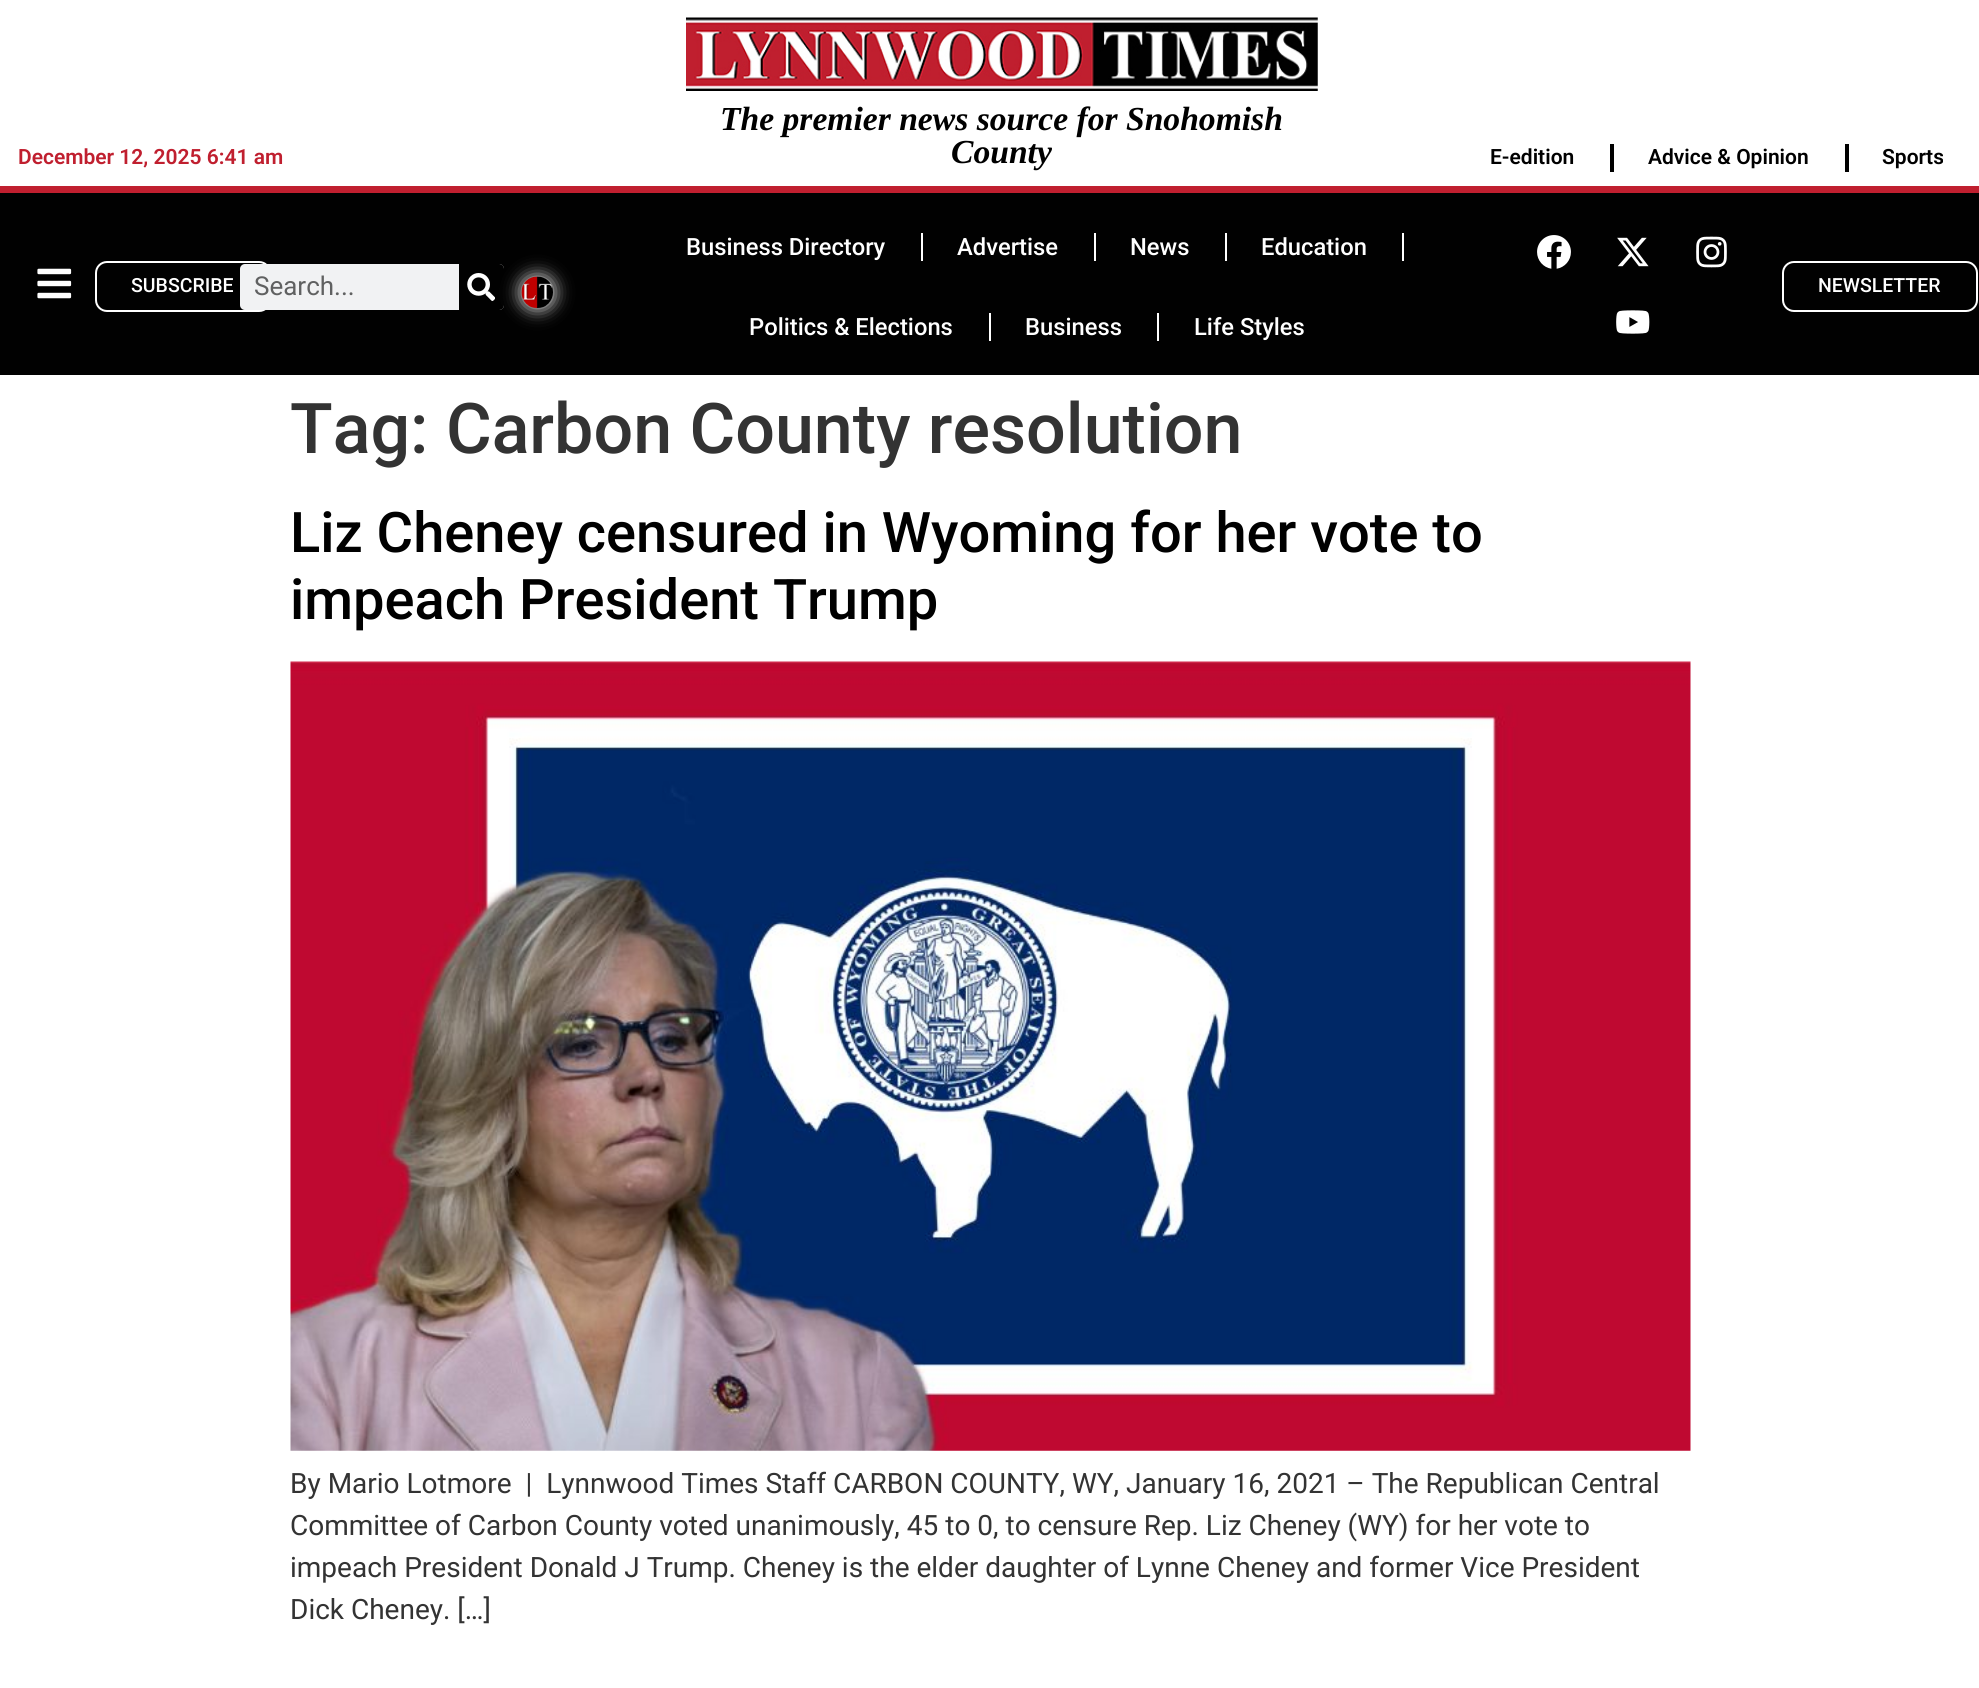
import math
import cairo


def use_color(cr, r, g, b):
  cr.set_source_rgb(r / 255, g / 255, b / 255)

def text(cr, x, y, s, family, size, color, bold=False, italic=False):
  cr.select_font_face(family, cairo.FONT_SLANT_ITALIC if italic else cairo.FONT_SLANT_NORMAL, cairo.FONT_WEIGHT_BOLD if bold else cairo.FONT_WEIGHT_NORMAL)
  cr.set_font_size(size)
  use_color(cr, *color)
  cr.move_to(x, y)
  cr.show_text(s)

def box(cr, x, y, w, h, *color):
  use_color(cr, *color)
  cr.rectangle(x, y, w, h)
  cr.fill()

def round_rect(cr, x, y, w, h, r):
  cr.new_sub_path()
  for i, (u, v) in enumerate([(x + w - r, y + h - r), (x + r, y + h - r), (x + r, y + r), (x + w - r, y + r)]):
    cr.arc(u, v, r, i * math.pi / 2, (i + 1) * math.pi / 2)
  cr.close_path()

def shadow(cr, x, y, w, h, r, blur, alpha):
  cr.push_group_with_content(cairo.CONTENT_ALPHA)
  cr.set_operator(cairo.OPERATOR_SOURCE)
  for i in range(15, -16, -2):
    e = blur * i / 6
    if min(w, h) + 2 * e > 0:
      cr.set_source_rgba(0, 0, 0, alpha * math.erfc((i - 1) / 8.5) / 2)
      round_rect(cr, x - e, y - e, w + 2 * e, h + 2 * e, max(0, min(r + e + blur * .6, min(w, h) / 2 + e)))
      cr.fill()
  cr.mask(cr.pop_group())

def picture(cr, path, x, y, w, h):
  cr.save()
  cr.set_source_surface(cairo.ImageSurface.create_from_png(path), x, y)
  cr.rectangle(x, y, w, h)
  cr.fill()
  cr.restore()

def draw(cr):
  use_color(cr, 255, 255, 255)
  cr.paint()
  picture(cr, "img_01.png", 686, 17, 632, 74)
  box(cr, 1610, 144, 4, 28, 0, 0, 0)
  box(cr, 1845, 144, 4, 28, 0, 0, 0)
  box(cr, 0, 193, 1979, 182, 1, 1, 1)
  box(cr, 0, 186, 1979, 7, 192, 31, 47)
  picture(cr, "img_02.png", 37, 268, 35, 31)
  round_rect(cr, 96, 262, 174, 49, 11)
  use_color(cr, 255, 255, 255)
  cr.stroke()
  use_color(cr, 241, 242, 243)
  round_rect(cr, 240, 264, 264, 46, 5)
  cr.fill()
  use_color(cr, 1, 1, 1)
  cr.new_path()
  cr.move_to(459, 264)
  cr.line_to(499, 264)
  cr.curve_to(502, 264, 504, 266, 504, 269)
  cr.line_to(504, 305)
  cr.curve_to(504, 308, 502, 310, 499, 310)
  cr.line_to(459, 310)
  cr.close_path()
  cr.fill()
  picture(cr, "img_03.png", 467, 273, 28, 28)
  use_color(cr, 255, 255, 255)
  shadow(cr, 522, 277, 31, 31, 15.5, 9, 0.97)
  picture(cr, "img_04.png", 521, 276, 32, 32)
  box(cr, 921, 233, 2, 28, 255, 255, 255)
  box(cr, 1094, 233, 2, 28, 255, 255, 255)
  box(cr, 1225, 233, 2, 28, 255, 255, 255)
  box(cr, 1402, 233, 2, 28, 255, 255, 255)
  box(cr, 989, 313, 2, 28, 255, 255, 255)
  box(cr, 1157, 313, 2, 28, 255, 255, 255)
  picture(cr, "img_05.png", 1537, 235, 34, 34)
  picture(cr, "img_06.png", 1617, 237, 32, 30)
  picture(cr, "img_07.png", 1696, 236, 31, 32)
  picture(cr, "img_08.png", 1616, 310, 34, 24)
  round_rect(cr, 1783, 262, 194, 49, 11)
  cr.stroke()
  picture(cr, "img_09.png", 290, 661, 1401, 790)
  text(cr, 18, 164, "December 12, 2025 6:41 am", "Roboto SemiBold", 21, (192, 31, 47))
  text(cr, 720, 130, "The premier news source for Snohomish", "Liberation Serif", 33.6, (0, 0, 0), bold=True, italic=True)
  text(cr, 951, 163, "County", "Liberation Serif", 33.6, (0, 0, 0), bold=True, italic=True)
  text(cr, 1490, 164, "E-edition", "Roboto SemiBold", 21, (0, 0, 0))
  text(cr, 1648, 164, "Advice & Opinion", "Roboto SemiBold", 21, (0, 0, 0))
  text(cr, 1882, 164, "Sports", "Roboto SemiBold", 21, (0, 0, 0))
  text(cr, 131, 292, "SUBSCRIBE", "Roboto Medium", 19.5, (255, 255, 255))
  text(cr, 254, 295, "Search...", "Roboto", 26, (96, 97, 97))
  text(cr, 686, 255, "Business Directory", "Roboto Medium", 23.75, (255, 255, 255))
  text(cr, 957, 255, "Advertise", "Roboto Medium", 23.75, (255, 255, 255))
  text(cr, 1130, 255, "News", "Roboto Medium", 23.75, (255, 255, 255))
  text(cr, 1261, 255, "Education", "Roboto Medium", 23.75, (255, 255, 255))
  text(cr, 749, 335, "Politics & Elections", "Roboto Medium", 23.75, (255, 255, 255))
  text(cr, 1025, 335, "Business", "Roboto Medium", 23.75, (255, 255, 255))
  text(cr, 1194, 335, "Life Styles", "Roboto Medium", 23.75, (255, 255, 255))
  text(cr, 1818, 292, "NEWSLETTER", "Roboto Medium", 19.5, (255, 255, 255))
  text(cr, 290, 453, "Tag: Carbon County resolution", "Roboto Medium", 70, (51, 51, 51))
  text(cr, 290, 552, "Liz Cheney censured in Wyoming for her vote to", "Roboto Medium", 56, (0, 0, 0))
  text(cr, 290, 619, "impeach President Trump", "Roboto Medium", 56, (0, 0, 0))
  text(cr, 290, 1493, "By Mario Lotmore  |  Lynnwood Times Staff CARBON COUNTY, WY, January 16, 2021 – The Republican Central", "Roboto", 28, (51, 51, 51))
  text(cr, 290, 1535, "Committee of Carbon County voted unanimously, 45 to 0, to censure Rep. Liz Cheney (WY) for her vote to", "Roboto", 28, (51, 51, 51))
  text(cr, 290, 1577, "impeach President Donald J Trump. Cheney is the elder daughter of Lynne Cheney and former Vice President", "Roboto", 28, (51, 51, 51))
  text(cr, 290, 1619, "Dick Cheney. […]", "Roboto", 28, (51, 51, 51))


surface = cairo.ImageSurface(cairo.FORMAT_RGB24, 1979, 1688)
cr = cairo.Context(surface)
options = cairo.FontOptions()
options.set_hint_metrics(cairo.HINT_METRICS_OFF)
options.set_hint_style(cairo.HINT_STYLE_NONE)
cr.set_font_options(options)
cr.set_miter_limit(4)
draw(cr)
surface.write_to_png("out.png")
